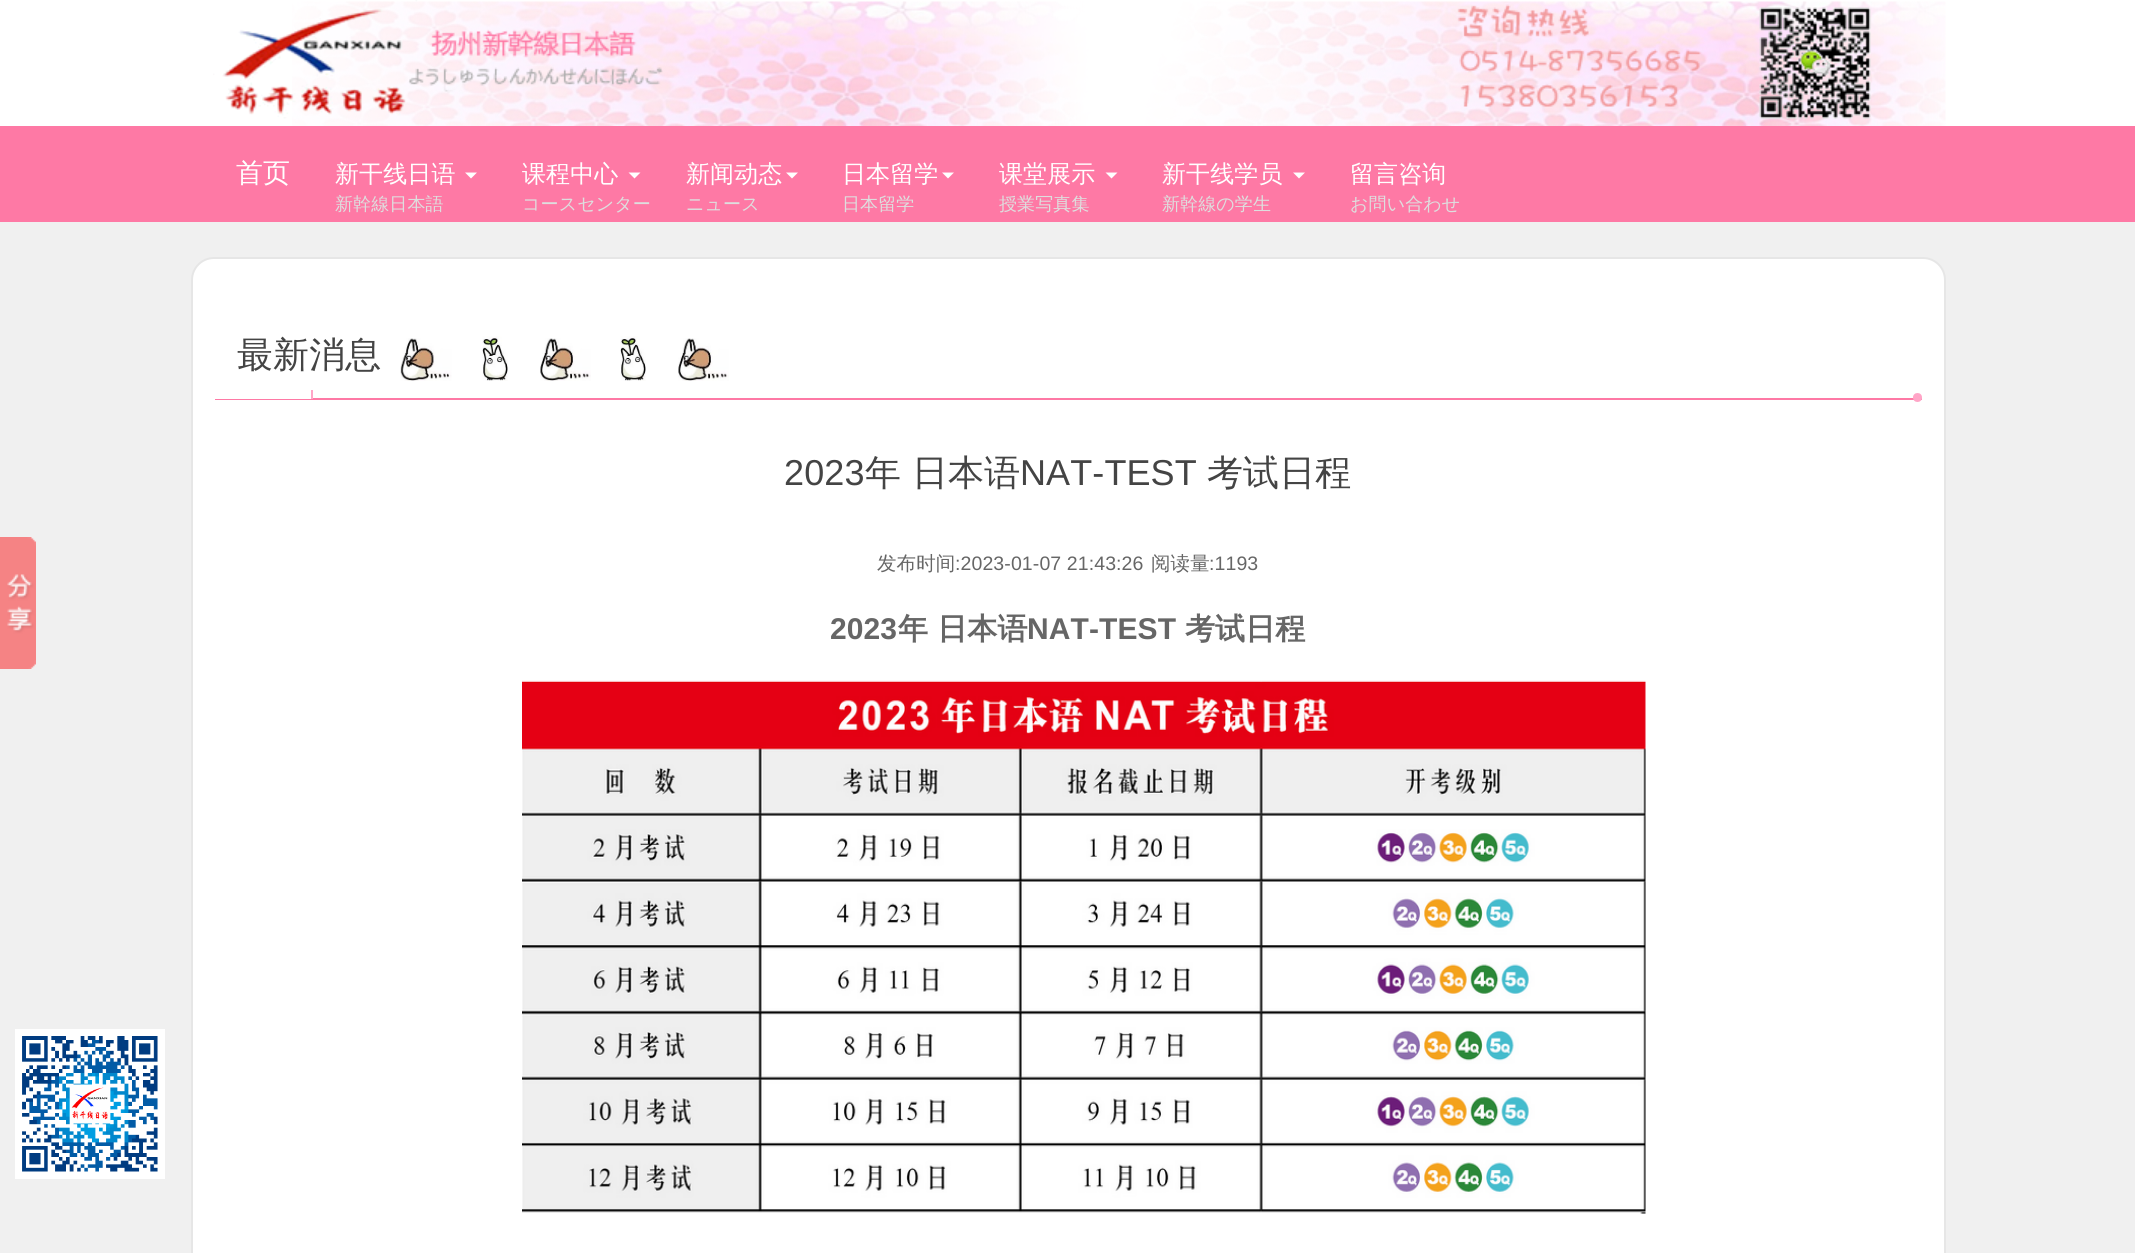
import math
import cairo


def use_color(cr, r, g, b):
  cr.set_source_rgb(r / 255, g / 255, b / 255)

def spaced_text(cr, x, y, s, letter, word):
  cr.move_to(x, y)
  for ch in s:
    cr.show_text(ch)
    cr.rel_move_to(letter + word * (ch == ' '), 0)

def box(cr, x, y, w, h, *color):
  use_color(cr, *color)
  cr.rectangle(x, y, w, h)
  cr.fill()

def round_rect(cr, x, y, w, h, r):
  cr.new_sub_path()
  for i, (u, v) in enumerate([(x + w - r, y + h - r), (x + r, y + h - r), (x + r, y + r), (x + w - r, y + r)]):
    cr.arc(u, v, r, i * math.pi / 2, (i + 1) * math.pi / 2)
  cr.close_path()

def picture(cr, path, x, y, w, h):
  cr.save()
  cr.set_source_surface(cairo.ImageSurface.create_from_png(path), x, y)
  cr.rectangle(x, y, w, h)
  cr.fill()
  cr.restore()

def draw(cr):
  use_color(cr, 240, 240, 240)
  cr.paint()
  box(cr, 0, 0, 2135, 126, 255, 255, 255)
  picture(cr, "img_01.png", 292, 1, 1654, 125)
  picture(cr, "img_02.png", 213, 0, 450, 119)
  picture(cr, "img_03.png", 1432, 4, 439, 115)
  box(cr, 0, 126, 2135, 96, 254, 121, 165)
  use_color(cr, 255, 255, 255)
  cr.new_path()
  cr.move_to(465, 172.5)
  cr.line_to(477, 172.5)
  cr.line_to(471, 178.5)
  cr.close_path()
  cr.fill()
  cr.new_path()
  cr.move_to(628.5, 172.5)
  cr.line_to(640.5, 172.5)
  cr.line_to(634.5, 178.5)
  cr.close_path()
  cr.fill()
  cr.new_path()
  cr.move_to(786, 172.5)
  cr.line_to(798, 172.5)
  cr.line_to(792, 178.5)
  cr.close_path()
  cr.fill()
  cr.new_path()
  cr.move_to(942, 172.5)
  cr.line_to(954, 172.5)
  cr.line_to(948, 178.5)
  cr.close_path()
  cr.fill()
  cr.new_path()
  cr.move_to(1105.5, 172.5)
  cr.line_to(1117.5, 172.5)
  cr.line_to(1111.5, 178.5)
  cr.close_path()
  cr.fill()
  cr.new_path()
  cr.move_to(1293, 172.5)
  cr.line_to(1305, 172.5)
  cr.line_to(1299, 178.5)
  cr.close_path()
  cr.fill()
  picture(cr, "img_04.png", 0, 537, 36, 132)
  round_rect(cr, 192, 258, 1753, 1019, 22)
  cr.fill_preserve()
  use_color(cr, 230, 230, 230)
  cr.stroke()
  box(cr, 215, 398, 1707, 2, 254, 121, 165)
  picture(cr, "img_05.png", 400, 338, 52, 43)
  picture(cr, "img_06.png", 482, 336, 26, 45)
  picture(cr, "img_07.png", 540, 338, 51, 43)
  picture(cr, "img_06.png", 620, 336, 26, 45)
  picture(cr, "img_07.png", 678, 338, 51, 43)
  box(cr, 215, 398, 96, 1, 255, 255, 255)
  box(cr, 311, 390, 2, 9, 255, 165, 199)
  cr.arc(1917.5, 397.5, 4.5, 0, 2 * math.pi)
  cr.fill()
  picture(cr, "img_08.png", 522, 680, 1124, 534)
  picture(cr, "img_09.png", 15, 1029, 150, 150)
  cr.select_font_face("WenQuanYi Zen Hei Medium")
  cr.set_font_size(27)
  use_color(cr, 255, 255, 255)
  spaced_text(cr, 236, 182, "首页", 0.1, 0)
  cr.set_font_size(24)
  spaced_text(cr, 335, 182, "新干线日语", 0.1, 0)
  cr.set_font_size(18)
  use_color(cr, 222, 222, 222)
  spaced_text(cr, 335, 210, "新幹線日本語", 0.1, 0)
  cr.set_font_size(24)
  use_color(cr, 255, 255, 255)
  spaced_text(cr, 522, 182, "课程中心", 0.1, 0)
  cr.set_font_size(18)
  use_color(cr, 222, 222, 222)
  spaced_text(cr, 522, 210, "コースセンター", 0.1, 0)
  cr.set_font_size(24)
  use_color(cr, 255, 255, 255)
  spaced_text(cr, 686, 182, "新闻动态", 0.1, 0)
  cr.set_font_size(18)
  use_color(cr, 222, 222, 222)
  spaced_text(cr, 686, 210, "ニュース", 0.1, 0)
  cr.set_font_size(24)
  use_color(cr, 255, 255, 255)
  spaced_text(cr, 842, 182, "日本留学", 0.1, 0)
  cr.set_font_size(18)
  use_color(cr, 222, 222, 222)
  spaced_text(cr, 842, 210, "日本留学", 0.1, 0)
  cr.set_font_size(24)
  use_color(cr, 255, 255, 255)
  spaced_text(cr, 999, 182, "课堂展示", 0.1, 0)
  cr.set_font_size(18)
  use_color(cr, 222, 222, 222)
  spaced_text(cr, 999, 210, "授業写真集", 0.1, 0)
  cr.set_font_size(24)
  use_color(cr, 255, 255, 255)
  spaced_text(cr, 1162, 182, "新干线学员", 0.1, 0)
  cr.set_font_size(18)
  use_color(cr, 222, 222, 222)
  spaced_text(cr, 1162, 210, "新幹線の学生", 0.1, 0)
  cr.set_font_size(24)
  use_color(cr, 255, 255, 255)
  spaced_text(cr, 1350, 182, "留言咨询", 0.1, 0)
  cr.set_font_size(18)
  use_color(cr, 222, 222, 222)
  spaced_text(cr, 1350, 210, "お問い合わせ", 0.1, 0)
  cr.set_font_size(36)
  use_color(cr, 68, 68, 68)
  spaced_text(cr, 237, 367, "最新消息", 0.1, 0)
  cr.select_font_face("Liberation Sans")
  spaced_text(cr, 784, 485, "2023", 0.1, 0)
  cr.select_font_face("WenQuanYi Zen Hei Medium")
  spaced_text(cr, 865, 485, "年 日本语", 0.1, 0)
  cr.select_font_face("Liberation Sans")
  spaced_text(cr, 1020, 485, "NAT-TEST", 0.1, 0)
  cr.select_font_face("WenQuanYi Zen Hei Medium")
  spaced_text(cr, 1207, 485, "考试日程", 0.1, 0)
  cr.set_font_size(19.5)
  use_color(cr, 102, 102, 102)
  spaced_text(cr, 877, 570, "发布时间", 0.1, 0)
  cr.select_font_face("Liberation Sans")
  spaced_text(cr, 955, 570, ":2023-01-07 21:43:26", 0.1, 0)
  cr.select_font_face("WenQuanYi Zen Hei Medium")
  spaced_text(cr, 1151, 570, "阅读量", 0.1, 0)
  cr.select_font_face("Liberation Sans")
  spaced_text(cr, 1209, 570, ":1193", 0.1, 0)
  cr.select_font_face("Liberation Sans", cairo.FONT_SLANT_NORMAL, cairo.FONT_WEIGHT_BOLD)
  cr.set_font_size(30)
  spaced_text(cr, 830, 639, "2023", 0.1, 0)
  cr.select_font_face("WenQuanYi Zen Hei", cairo.FONT_SLANT_NORMAL, cairo.FONT_WEIGHT_BOLD)
  spaced_text(cr, 898, 639, "年 日本语", 0.1, 0)
  cr.select_font_face("Liberation Sans", cairo.FONT_SLANT_NORMAL, cairo.FONT_WEIGHT_BOLD)
  spaced_text(cr, 1027, 639, "NAT-TEST", 0.1, 0)
  cr.select_font_face("WenQuanYi Zen Hei", cairo.FONT_SLANT_NORMAL, cairo.FONT_WEIGHT_BOLD)
  spaced_text(cr, 1185, 639, "考试日程", 0.1, 0)


surface = cairo.ImageSurface(cairo.FORMAT_RGB24, 2135, 1253)
cr = cairo.Context(surface)
options = cairo.FontOptions()
options.set_hint_metrics(cairo.HINT_METRICS_OFF)
options.set_hint_style(cairo.HINT_STYLE_NONE)
cr.set_font_options(options)
cr.set_miter_limit(4)
draw(cr)
surface.write_to_png("out.png")
